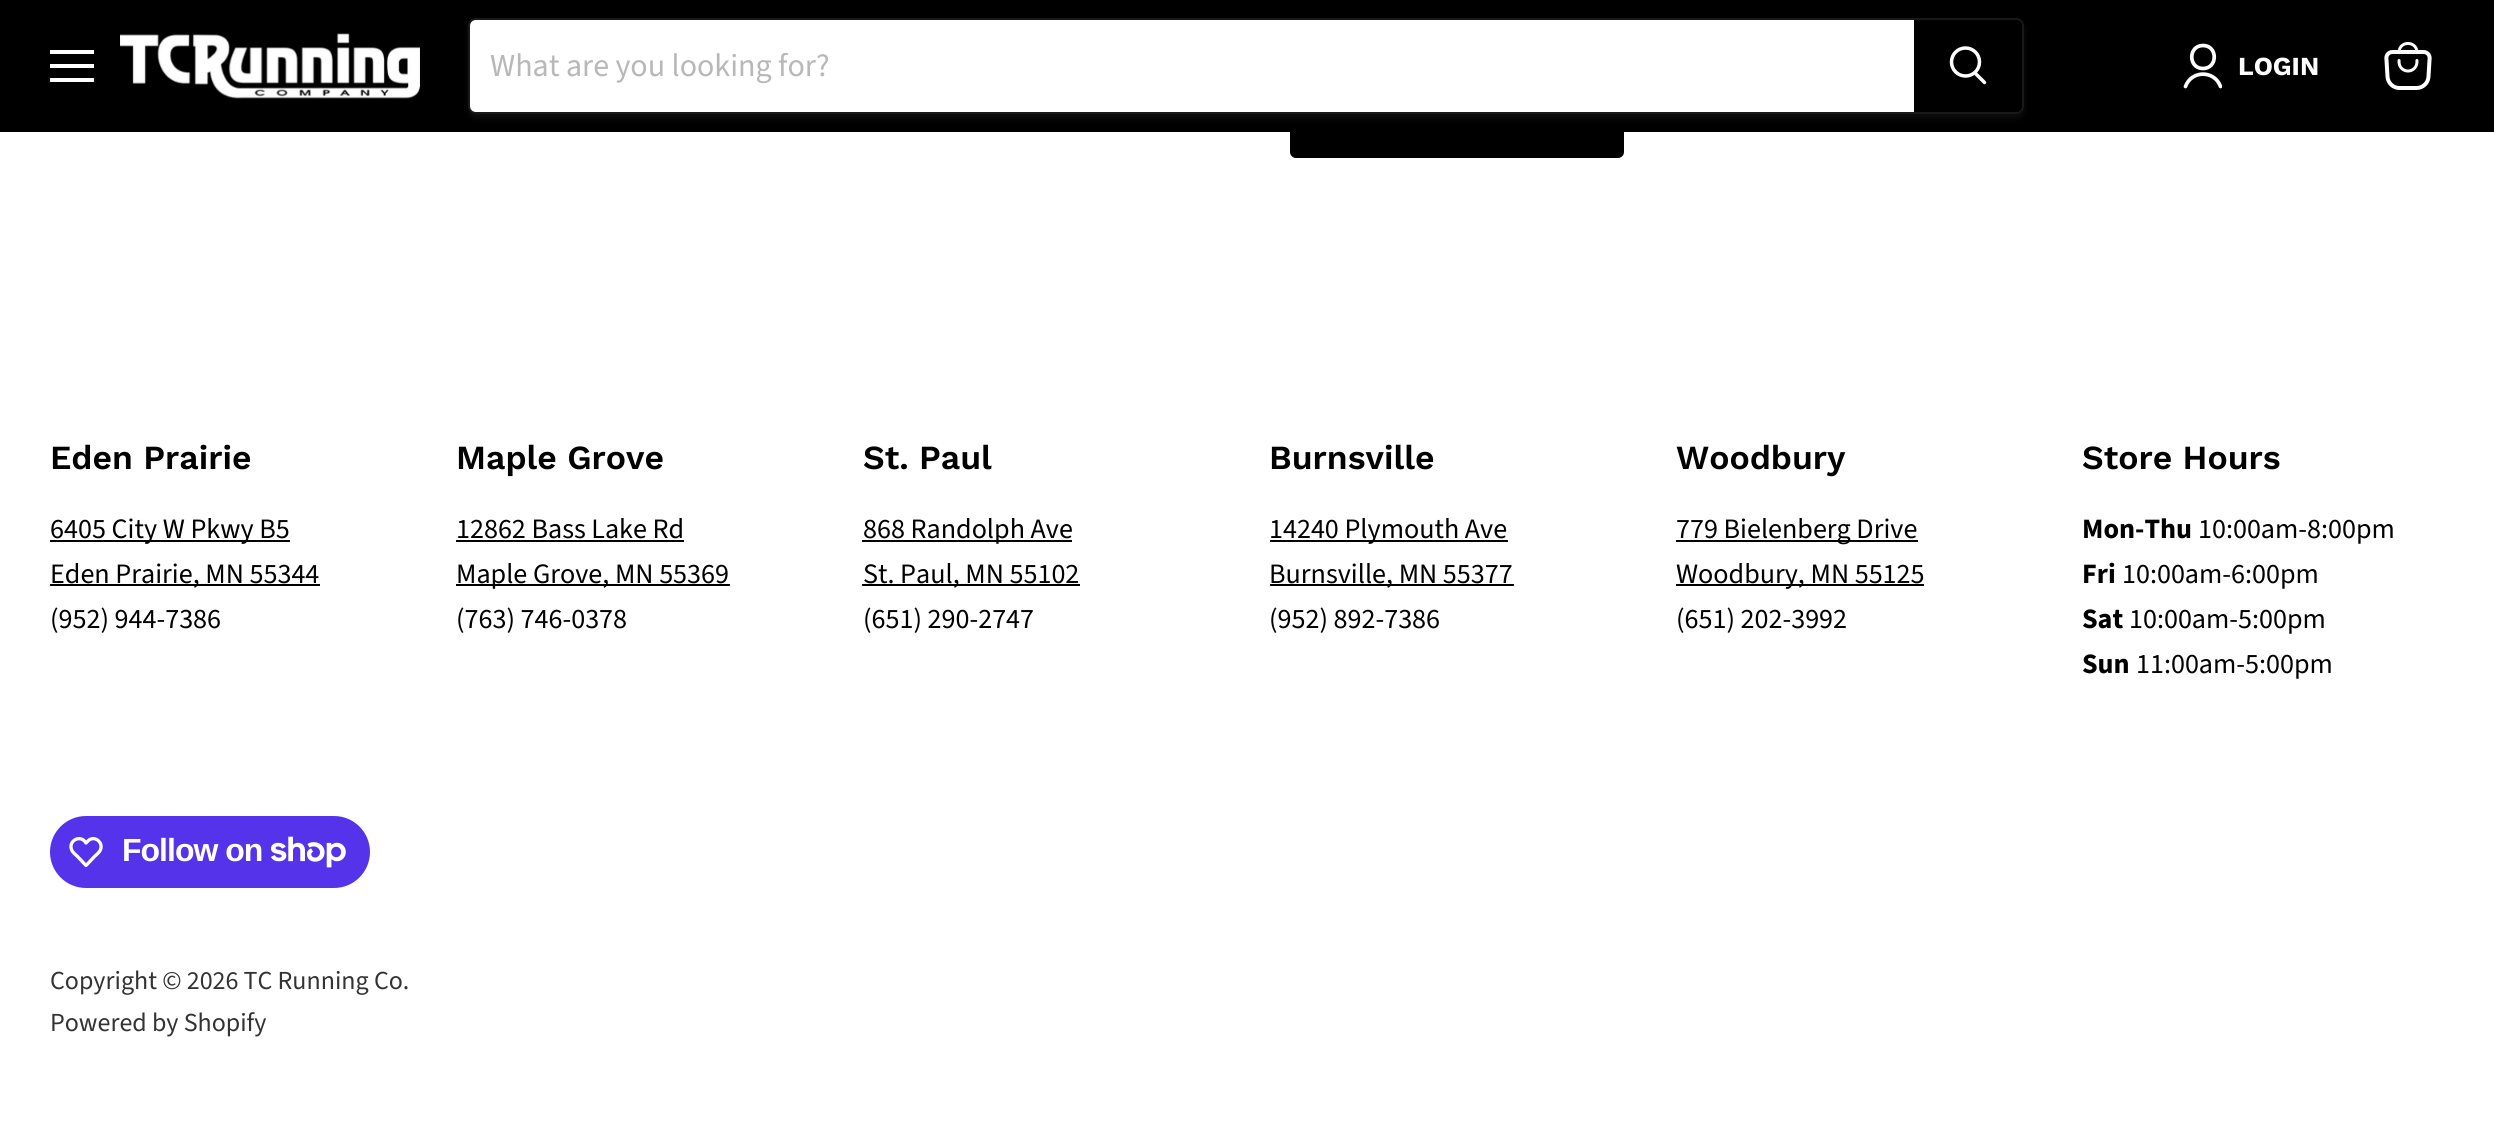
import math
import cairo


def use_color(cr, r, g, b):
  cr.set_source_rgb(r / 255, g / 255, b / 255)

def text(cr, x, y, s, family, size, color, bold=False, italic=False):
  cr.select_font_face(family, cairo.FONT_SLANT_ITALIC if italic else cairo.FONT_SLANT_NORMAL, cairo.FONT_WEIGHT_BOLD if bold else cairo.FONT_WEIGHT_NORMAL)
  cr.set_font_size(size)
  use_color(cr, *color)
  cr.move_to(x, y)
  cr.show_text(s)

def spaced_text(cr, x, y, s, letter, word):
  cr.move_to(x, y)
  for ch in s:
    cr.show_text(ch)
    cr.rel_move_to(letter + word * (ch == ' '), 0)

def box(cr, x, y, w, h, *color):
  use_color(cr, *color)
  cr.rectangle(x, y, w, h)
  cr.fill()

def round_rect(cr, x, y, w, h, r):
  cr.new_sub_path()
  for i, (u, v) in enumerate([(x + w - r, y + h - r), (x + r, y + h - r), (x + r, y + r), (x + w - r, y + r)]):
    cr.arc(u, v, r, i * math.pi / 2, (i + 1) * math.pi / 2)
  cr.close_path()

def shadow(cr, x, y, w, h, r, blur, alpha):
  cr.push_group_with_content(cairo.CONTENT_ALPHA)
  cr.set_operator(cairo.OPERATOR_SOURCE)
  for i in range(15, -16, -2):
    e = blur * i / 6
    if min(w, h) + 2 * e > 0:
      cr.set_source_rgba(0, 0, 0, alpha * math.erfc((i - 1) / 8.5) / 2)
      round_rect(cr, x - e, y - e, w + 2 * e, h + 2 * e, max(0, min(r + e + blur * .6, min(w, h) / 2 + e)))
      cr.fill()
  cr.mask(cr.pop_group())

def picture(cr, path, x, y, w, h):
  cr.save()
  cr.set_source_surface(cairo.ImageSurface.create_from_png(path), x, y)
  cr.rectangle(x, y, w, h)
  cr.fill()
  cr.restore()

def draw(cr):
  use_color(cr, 255, 255, 255)
  cr.paint()
  use_color(cr, 0, 0, 0)
  round_rect(cr, 1291, 73, 332, 84, 5)
  cr.fill_preserve()
  cr.stroke()
  box(cr, 0, 0, 2494, 132, 0, 0, 0)
  box(cr, 50, 50, 44, 4, 255, 255, 255)
  box(cr, 50, 64, 44, 4, 255, 255, 255)
  box(cr, 50, 78, 44, 4, 255, 255, 255)
  picture(cr, "img_01.png", 120, 33, 300, 66)
  cr.save()
  cr.set_fill_rule(cairo.FILL_RULE_EVEN_ODD)
  cr.new_path()
  cr.move_to(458, 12)
  cr.line_to(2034, 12)
  cr.line_to(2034, 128)
  cr.line_to(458, 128)
  cr.close_path()
  cr.move_to(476, 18)
  cr.line_to(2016, 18)
  cr.curve_to(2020.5, 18, 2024, 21.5, 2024, 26)
  cr.line_to(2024, 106)
  cr.curve_to(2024, 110.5, 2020.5, 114, 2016, 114)
  cr.line_to(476, 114)
  cr.curve_to(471.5, 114, 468, 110.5, 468, 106)
  cr.line_to(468, 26)
  cr.curve_to(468, 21.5, 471.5, 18, 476, 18)
  cr.close_path()
  cr.clip()
  use_color(cr, 128, 128, 128)
  shadow(cr, 468, 22, 1556, 96, 8, 3, 0.11)
  cr.restore()
  round_rect(cr, 469, 19, 1554, 94, 7)
  cr.set_source_rgba(0.502, 0.502, 0.502, 0.2)
  cr.stroke()
  use_color(cr, 255, 255, 255)
  cr.new_path()
  cr.move_to(476, 20)
  cr.line_to(1914, 20)
  cr.line_to(1914, 112)
  cr.line_to(476, 112)
  cr.curve_to(472.5, 112, 470, 109.5, 470, 106)
  cr.line_to(470, 26)
  cr.curve_to(470, 22.5, 472.5, 20, 476, 20)
  cr.close_path()
  cr.fill()
  use_color(cr, 0, 0, 0)
  cr.new_path()
  cr.move_to(1915, 21)
  cr.line_to(2016, 21)
  cr.curve_to(2019, 21, 2021, 23, 2021, 26)
  cr.line_to(2021, 106)
  cr.curve_to(2021, 109, 2019, 111, 2016, 111)
  cr.line_to(1915, 111)
  cr.close_path()
  cr.fill_preserve()
  cr.stroke()
  cr.new_path()
  cr.move_to(1984.5, 82.5)
  cr.line_to(1975, 73)
  use_color(cr, 255, 255, 255)
  cr.set_line_width(3.5)
  cr.set_line_cap(cairo.LINE_CAP_ROUND)
  cr.stroke()
  cr.arc(1965.5, 62, 14, 0, 2 * math.pi)
  cr.set_line_cap(cairo.LINE_CAP_BUTT)
  cr.stroke()
  cr.new_path()
  cr.move_to(2203, 68.5)
  cr.curve_to(2218, 68.5, 2218, 45.5, 2203, 45.5)
  cr.curve_to(2188, 45.5, 2188, 68.5, 2203, 68.5)
  cr.close_path()
  cr.set_line_width(3.7)
  cr.set_line_cap(cairo.LINE_CAP_ROUND)
  cr.set_line_join(cairo.LINE_JOIN_ROUND)
  cr.stroke()
  cr.save()
  cr.rectangle(2182, 42, 40, 48)
  cr.clip()
  cr.new_path()
  cr.move_to(2220.5, 86.5)
  cr.curve_to(2214.5, 70, 2191.5, 70, 2185.5, 86.5)
  cr.stroke()
  cr.restore()
  picture(cr, "img_02.png", 2384, 42, 48, 48)
  box(cr, 50, 540, 240, 2, 0, 0, 0)
  box(cr, 50, 584, 270, 2, 0, 0, 0)
  box(cr, 456, 540, 228, 2, 0, 0, 0)
  box(cr, 456, 584, 274, 2, 0, 0, 0)
  box(cr, 862, 540, 210, 2, 0, 0, 0)
  box(cr, 862, 584, 218, 2, 0, 0, 0)
  box(cr, 1270, 540, 238, 2, 0, 0, 0)
  box(cr, 1270, 584, 244, 2, 0, 0, 0)
  box(cr, 1676, 540, 242, 2, 0, 0, 0)
  box(cr, 1676, 584, 248, 2, 0, 0, 0)
  use_color(cr, 84, 51, 235)
  round_rect(cr, 50, 816, 320, 72, 36)
  cr.fill()
  cr.new_path()
  cr.move_to(84.5, 841)
  cr.line_to(86, 843)
  cr.curve_to(87.5, 841.5, 89, 839.5, 91, 839)
  cr.curve_to(97, 837, 103, 843.5, 100.5, 849.5)
  cr.curve_to(99.5, 852.5, 96.5, 854.5, 94.5, 856.5)
  cr.line_to(86, 865.5)
  cr.line_to(77.5, 856.5)
  cr.curve_to(75.5, 854.5, 72.5, 852.5, 71.5, 849.5)
  cr.curve_to(68.5, 841.5, 78.5, 835, 84.5, 841)
  cr.close_path()
  use_color(cr, 255, 255, 255)
  cr.set_line_width(3.3)
  cr.set_line_cap(cairo.LINE_CAP_BUTT)
  cr.stroke()
  picture(cr, "img_03.png", 271, 836, 75, 32)
  text(cr, 490, 76, "What are you looking for?", "Source Sans Pro", 32, (184, 184, 184))
  text(cr, 2238, 75, "LOGIN", "Work Sans", 26, (255, 255, 255), bold=True)
  text(cr, 50, 469, "Eden Prairie", "Work Sans SemiBold", 33.75, (0, 0, 0))
  text(cr, 50, 538, "6405 City W Pkwy B5", "Source Sans Pro", 28.1, (0, 0, 0))
  text(cr, 50, 583, "Eden Prairie, MN 55344", "Source Sans Pro", 28.1, (0, 0, 0))
  text(cr, 50, 628, "(952) 944-7386", "Source Sans Pro", 28.1, (0, 0, 0))
  text(cr, 456, 469, "Maple Grove", "Work Sans SemiBold", 33.75, (0, 0, 0))
  text(cr, 456, 538, "12862 Bass Lake Rd", "Source Sans Pro", 28.1, (0, 0, 0))
  text(cr, 456, 583, "Maple Grove, MN 55369", "Source Sans Pro", 28.1, (0, 0, 0))
  text(cr, 456, 628, "(763) 746-0378", "Source Sans Pro", 28.1, (0, 0, 0))
  text(cr, 863, 469, "St. Paul", "Work Sans SemiBold", 33.75, (0, 0, 0))
  text(cr, 863, 538, "868 Randolph Ave", "Source Sans Pro", 28.1, (0, 0, 0))
  text(cr, 863, 583, "St. Paul, MN 55102", "Source Sans Pro", 28.1, (0, 0, 0))
  text(cr, 863, 628, "(651) 290-2747", "Source Sans Pro", 28.1, (0, 0, 0))
  text(cr, 1269, 469, "Burnsville", "Work Sans SemiBold", 33.75, (0, 0, 0))
  text(cr, 1269, 538, "14240 Plymouth Ave", "Source Sans Pro", 28.1, (0, 0, 0))
  text(cr, 1269, 583, "Burnsville, MN 55377", "Source Sans Pro", 28.1, (0, 0, 0))
  text(cr, 1269, 628, "(952) 892-7386", "Source Sans Pro", 28.1, (0, 0, 0))
  text(cr, 1676, 469, "Woodbury", "Work Sans SemiBold", 33.75, (0, 0, 0))
  text(cr, 1676, 538, "779 Bielenberg Drive", "Source Sans Pro", 28.1, (0, 0, 0))
  text(cr, 1676, 583, "Woodbury, MN 55125", "Source Sans Pro", 28.1, (0, 0, 0))
  text(cr, 1676, 628, "(651) 202-3992", "Source Sans Pro", 28.1, (0, 0, 0))
  text(cr, 2082, 469, "Store Hours", "Work Sans SemiBold", 33.75, (0, 0, 0))
  text(cr, 2082, 538, "Mon-Thu", "Source Sans Pro", 28.1, (0, 0, 0), bold=True)
  text(cr, 2198, 538, "10:00am-8:00pm", "Source Sans Pro", 28.1, (0, 0, 0))
  text(cr, 2082, 583, "Fri", "Source Sans Pro", 28.1, (0, 0, 0), bold=True)
  text(cr, 2122, 583, "10:00am-6:00pm", "Source Sans Pro", 28.1, (0, 0, 0))
  text(cr, 2082, 628, "Sat", "Source Sans Pro", 28.1, (0, 0, 0), bold=True)
  text(cr, 2129, 628, "10:00am-5:00pm", "Source Sans Pro", 28.1, (0, 0, 0))
  text(cr, 2082, 673, "Sun", "Source Sans Pro", 28.1, (0, 0, 0), bold=True)
  text(cr, 2136, 673, "11:00am-5:00pm", "Source Sans Pro", 28.1, (0, 0, 0))
  cr.select_font_face("Liberation Sans", cairo.FONT_SLANT_NORMAL, cairo.FONT_WEIGHT_BOLD)
  cr.set_font_size(32)
  use_color(cr, 255, 255, 255)
  spaced_text(cr, 122, 861, "Follow on", -1, 0)
  text(cr, 50, 989, "Copyright © 2026 TC Running Co.", "Source Sans Pro", 26, (51, 51, 51))
  text(cr, 50, 1031, "Powered by Shopify", "Source Sans Pro", 26, (51, 51, 51))


surface = cairo.ImageSurface(cairo.FORMAT_RGB24, 2494, 1132)
cr = cairo.Context(surface)
options = cairo.FontOptions()
options.set_hint_metrics(cairo.HINT_METRICS_OFF)
options.set_hint_style(cairo.HINT_STYLE_NONE)
cr.set_font_options(options)
cr.set_miter_limit(4)
draw(cr)
surface.write_to_png("out.png")
